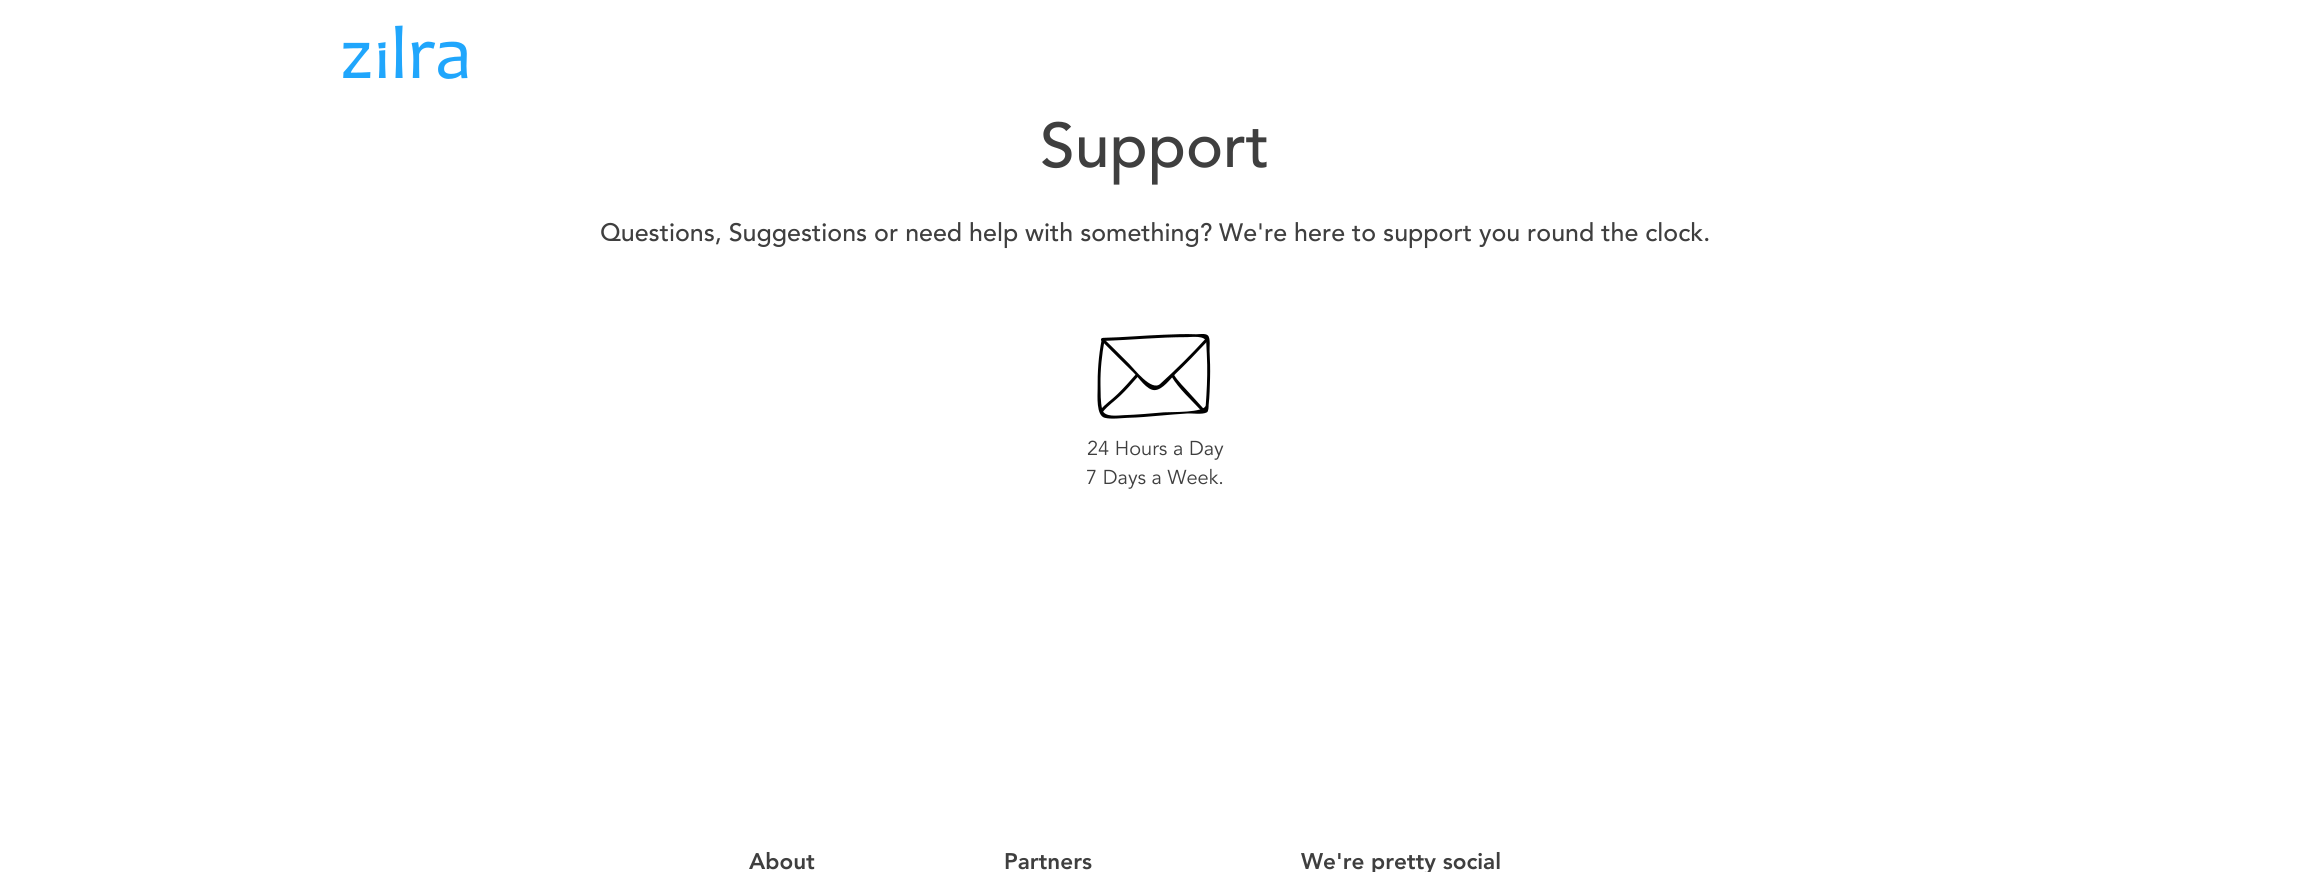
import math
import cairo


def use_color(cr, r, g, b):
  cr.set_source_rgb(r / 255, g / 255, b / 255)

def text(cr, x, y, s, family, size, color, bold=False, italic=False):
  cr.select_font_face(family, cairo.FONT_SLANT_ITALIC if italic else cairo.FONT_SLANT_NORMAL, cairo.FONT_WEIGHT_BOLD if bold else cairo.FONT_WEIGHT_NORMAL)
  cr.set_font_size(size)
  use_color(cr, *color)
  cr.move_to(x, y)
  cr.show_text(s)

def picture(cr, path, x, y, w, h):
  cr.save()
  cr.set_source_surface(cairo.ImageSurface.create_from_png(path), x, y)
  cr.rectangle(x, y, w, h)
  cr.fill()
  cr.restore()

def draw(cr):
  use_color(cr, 255, 255, 255)
  cr.paint()
  picture(cr, "img_01.png", 343, 25, 125, 54)
  picture(cr, "img_02.png", 1097, 334, 114, 85)
  text(cr, 1040, 167, "Support", "Avenir Medium", 62.5, (63, 63, 63))
  text(cr, 600, 241, "Questions, Suggestions or need help with something? We're here to support you round the clock.", "Avenir Medium", 25, (63, 63, 63))
  text(cr, 1087, 455, "24 Hours a Day", "Avenir", 20, (63, 63, 63))
  text(cr, 1086, 484, "7 Days a Week.", "Avenir", 20, (63, 63, 63))
  text(cr, 749, 869, "About", "Avenir Black", 22.5, (63, 63, 63))
  text(cr, 1004, 869, "Partners", "Avenir Black", 22.5, (63, 63, 63))
  text(cr, 1301, 869, "We're pretty social", "Avenir Black", 22.5, (63, 63, 63))


surface = cairo.ImageSurface(cairo.FORMAT_RGB24, 2309, 872)
cr = cairo.Context(surface)
options = cairo.FontOptions()
options.set_hint_metrics(cairo.HINT_METRICS_OFF)
options.set_hint_style(cairo.HINT_STYLE_NONE)
cr.set_font_options(options)
cr.set_miter_limit(4)
draw(cr)
surface.write_to_png("out.png")
